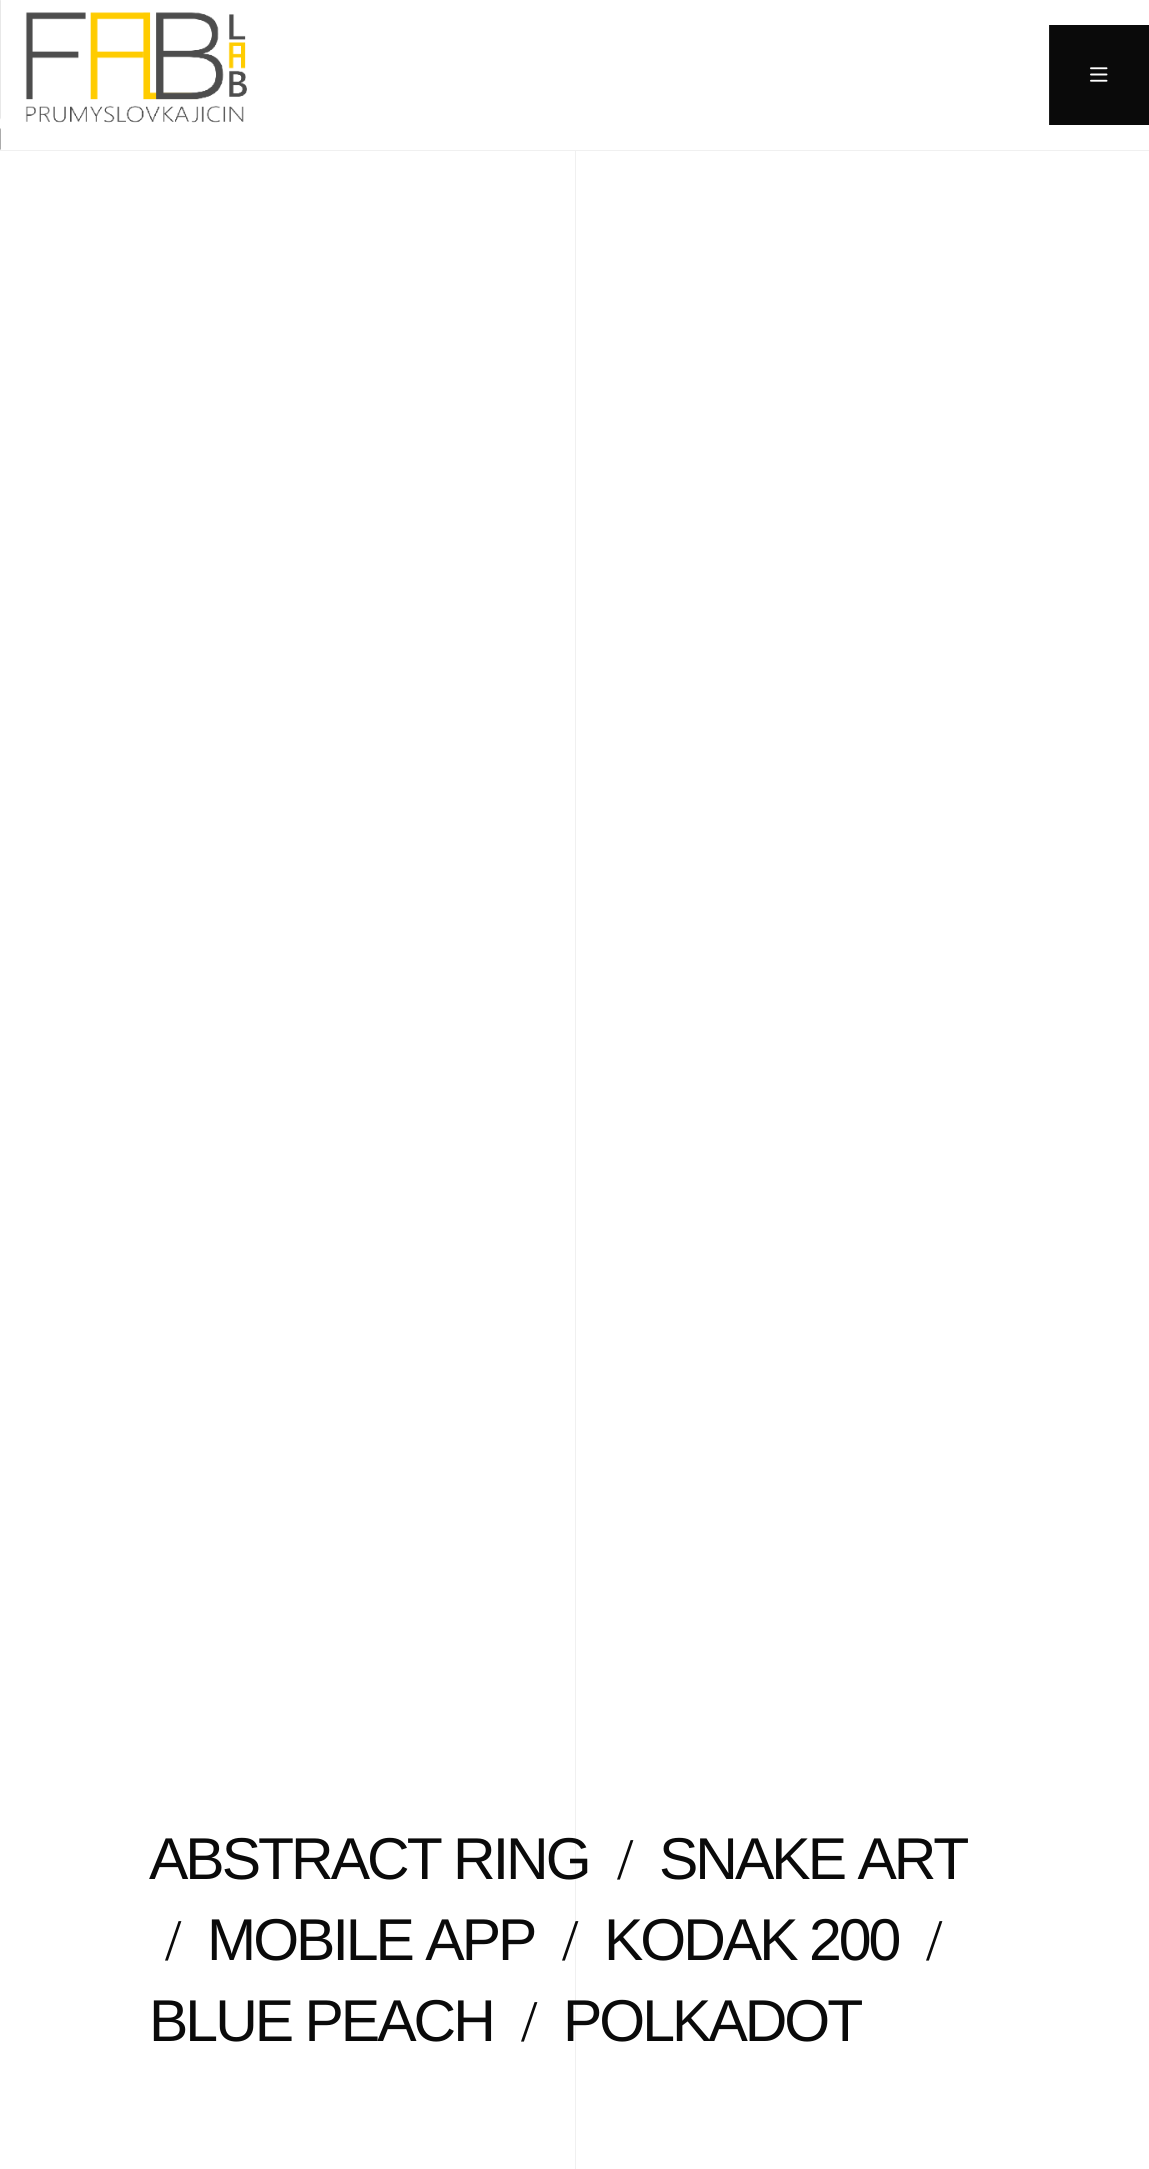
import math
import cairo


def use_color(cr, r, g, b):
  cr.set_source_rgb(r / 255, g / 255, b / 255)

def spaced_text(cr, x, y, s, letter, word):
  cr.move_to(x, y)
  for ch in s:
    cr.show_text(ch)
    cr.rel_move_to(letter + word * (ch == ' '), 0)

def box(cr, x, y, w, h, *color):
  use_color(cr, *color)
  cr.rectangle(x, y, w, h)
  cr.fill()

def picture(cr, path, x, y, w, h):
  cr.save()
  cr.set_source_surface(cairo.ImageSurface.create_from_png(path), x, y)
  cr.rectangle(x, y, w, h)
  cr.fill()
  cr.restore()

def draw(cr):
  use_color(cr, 255, 255, 255)
  cr.paint()
  box(cr, 0, 150, 1149, 1, 240, 240, 240)
  picture(cr, "img_01.png", 0, 0, 247, 150)
  box(cr, 1050, 25, 99, 100, 10, 10, 10)
  box(cr, 1049, 25, 1, 100, 31, 31, 31)
  picture(cr, "img_02.png", 1090, 67, 18, 15)
  box(cr, 575, 151, 1, 2018, 240, 240, 240)
  cr.select_font_face("Liberation Sans")
  cr.set_font_size(59)
  use_color(cr, 10, 10, 10)
  spaced_text(cr, 149, 1879, "ABSTRACT RING", -3, 0)
  cr.select_font_face("Liberation Serif")
  spaced_text(cr, 617, 1879, "/", -3, 0)
  cr.select_font_face("Liberation Sans")
  spaced_text(cr, 659, 1879, "SNAKE ART", -3, 0)
  cr.select_font_face("Liberation Serif")
  spaced_text(cr, 165, 1960, "/", -3, 0)
  cr.select_font_face("Liberation Sans")
  spaced_text(cr, 207, 1960, "MOBILE APP", -3, 0)
  cr.select_font_face("Liberation Serif")
  spaced_text(cr, 562, 1960, "/", -3, 0)
  cr.select_font_face("Liberation Sans")
  spaced_text(cr, 604, 1960, "KODAK 200", -3, 0)
  cr.select_font_face("Liberation Serif")
  spaced_text(cr, 926, 1960, "/", -3, 0)
  cr.select_font_face("Liberation Sans")
  spaced_text(cr, 149, 2041, "BLUE PEACH", -3, 0)
  cr.select_font_face("Liberation Serif")
  spaced_text(cr, 521, 2041, "/", -3, 0)
  cr.select_font_face("Liberation Sans")
  spaced_text(cr, 563, 2041, "POLKADOT", -3, 0)


surface = cairo.ImageSurface(cairo.FORMAT_RGB24, 1149, 2169)
cr = cairo.Context(surface)
options = cairo.FontOptions()
options.set_hint_metrics(cairo.HINT_METRICS_OFF)
options.set_hint_style(cairo.HINT_STYLE_NONE)
cr.set_font_options(options)
cr.set_miter_limit(4)
draw(cr)
surface.write_to_png("out.png")
